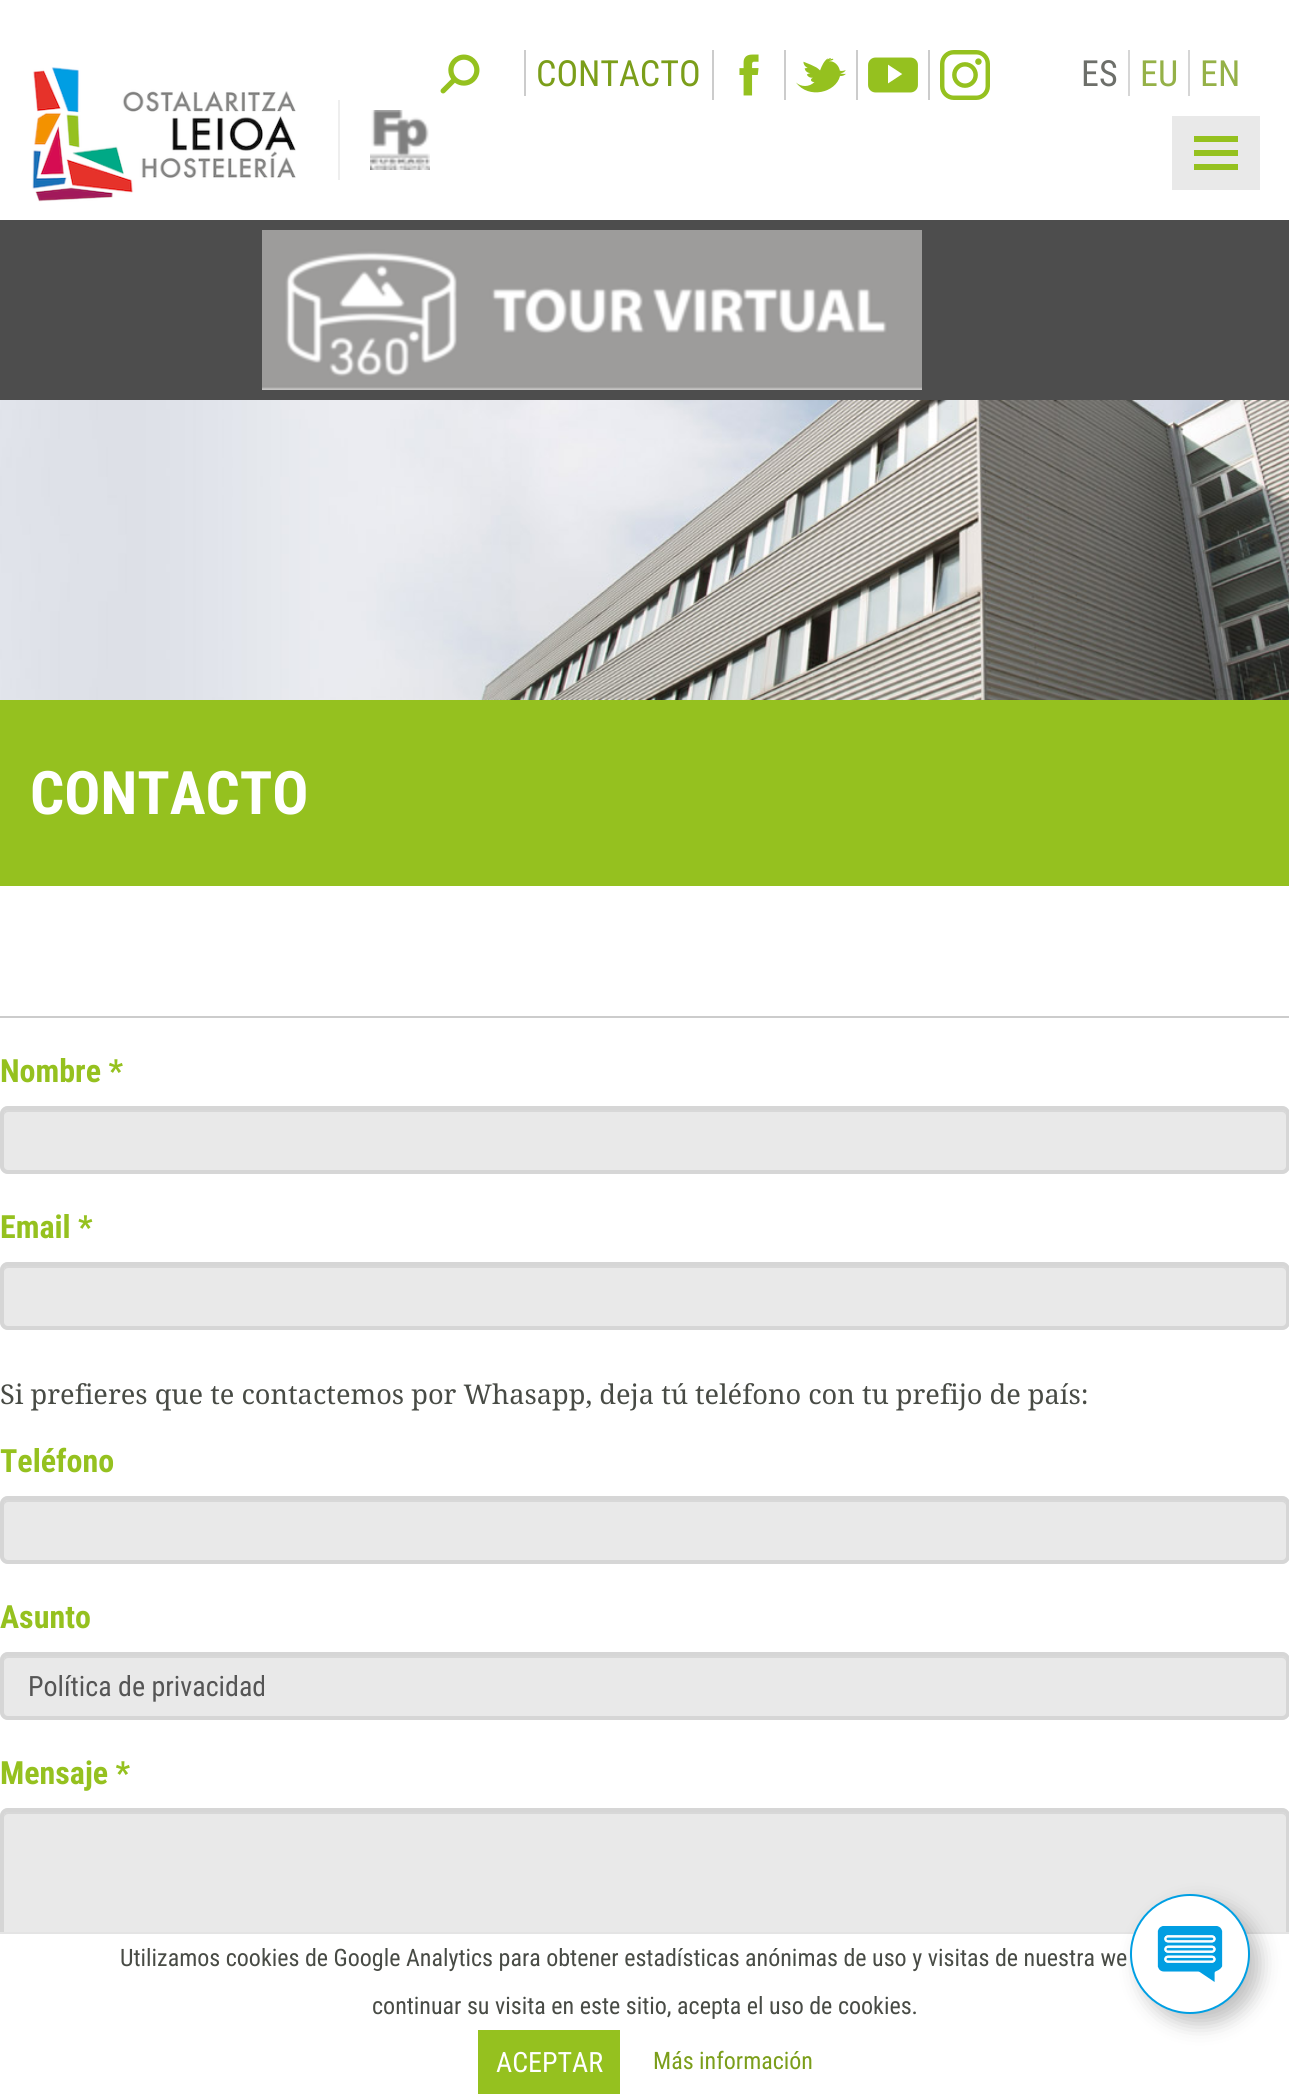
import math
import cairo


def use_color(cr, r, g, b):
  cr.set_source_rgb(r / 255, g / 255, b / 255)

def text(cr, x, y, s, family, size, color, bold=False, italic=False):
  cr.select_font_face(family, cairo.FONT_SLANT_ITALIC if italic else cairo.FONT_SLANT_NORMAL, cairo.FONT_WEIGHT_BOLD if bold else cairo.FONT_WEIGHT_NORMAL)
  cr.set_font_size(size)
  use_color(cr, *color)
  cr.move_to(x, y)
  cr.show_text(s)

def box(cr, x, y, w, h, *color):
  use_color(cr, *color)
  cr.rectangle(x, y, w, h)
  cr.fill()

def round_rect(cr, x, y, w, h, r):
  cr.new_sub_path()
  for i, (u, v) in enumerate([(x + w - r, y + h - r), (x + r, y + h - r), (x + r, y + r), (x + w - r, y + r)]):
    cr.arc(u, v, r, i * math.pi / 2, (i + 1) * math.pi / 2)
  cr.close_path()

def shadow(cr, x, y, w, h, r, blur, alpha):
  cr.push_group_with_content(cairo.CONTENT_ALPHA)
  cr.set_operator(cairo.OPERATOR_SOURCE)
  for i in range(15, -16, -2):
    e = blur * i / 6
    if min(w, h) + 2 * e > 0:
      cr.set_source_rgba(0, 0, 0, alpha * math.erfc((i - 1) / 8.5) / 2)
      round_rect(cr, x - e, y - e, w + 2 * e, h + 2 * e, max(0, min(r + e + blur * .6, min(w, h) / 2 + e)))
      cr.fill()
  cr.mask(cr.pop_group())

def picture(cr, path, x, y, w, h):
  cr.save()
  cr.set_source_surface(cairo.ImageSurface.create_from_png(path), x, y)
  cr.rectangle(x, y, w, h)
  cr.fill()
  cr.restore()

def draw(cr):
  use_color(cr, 255, 255, 255)
  cr.paint()
  picture(cr, "img_01.png", 440, 54, 40, 40)
  box(cr, 524, 50, 2, 46, 204, 204, 204)
  box(cr, 712, 50, 2, 50, 204, 204, 204)
  picture(cr, "img_02.png", 739, 54, 20, 42)
  box(cr, 784, 50, 2, 50, 204, 204, 204)
  picture(cr, "img_03.png", 796, 58, 50, 35)
  box(cr, 856, 50, 2, 50, 204, 204, 204)
  picture(cr, "img_04.png", 868, 57, 50, 36)
  box(cr, 928, 50, 2, 50, 204, 204, 204)
  picture(cr, "img_05.png", 940, 50, 50, 50)
  box(cr, 1128, 50, 2, 46, 214, 214, 214)
  box(cr, 1188, 50, 2, 46, 214, 214, 214)
  picture(cr, "img_06.png", 32, 67, 264, 135)
  box(cr, 338, 100, 2, 80, 238, 238, 238)
  picture(cr, "img_07.png", 370, 110, 60, 60)
  box(cr, 1172, 116, 88, 74, 233, 233, 233)
  box(cr, 1194, 136, 44, 6, 149, 193, 31)
  box(cr, 1194, 150, 44, 6, 149, 193, 31)
  box(cr, 1194, 164, 44, 6, 149, 193, 31)
  box(cr, 0, 220, 1289, 180, 77, 77, 77)
  picture(cr, "img_08.png", 262, 230, 660, 160)
  picture(cr, "img_09.png", 0, 400, 1289, 300)
  box(cr, 0, 700, 1289, 186, 149, 193, 31)
  box(cr, 0, 1016, 1289, 2, 204, 204, 204)
  use_color(cr, 233, 233, 233)
  round_rect(cr, 0, 1106, 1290, 68, 8)
  cr.fill()
  use_color(cr, 216, 216, 216)
  cr.new_path()
  cr.move_to(8, 1112)
  cr.line_to(1282, 1112)
  cr.curve_to(1284, 1112, 1286, 1114, 1286, 1116)
  cr.curve_to(1286, 1113, 1286, 1110, 1282, 1110)
  cr.line_to(8, 1110)
  cr.curve_to(4, 1110, 4, 1113, 4, 1116)
  cr.curve_to(4, 1114, 6, 1112, 8, 1112)
  cr.close_path()
  cr.fill()
  round_rect(cr, 2, 1108, 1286, 64, 6)
  use_color(cr, 214, 214, 214)
  cr.set_line_width(4)
  cr.stroke()
  use_color(cr, 233, 233, 233)
  round_rect(cr, 0, 1262, 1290, 68, 8)
  cr.fill()
  use_color(cr, 216, 216, 216)
  cr.new_path()
  cr.move_to(8, 1268)
  cr.line_to(1282, 1268)
  cr.curve_to(1284, 1268, 1286, 1270, 1286, 1272)
  cr.curve_to(1286, 1269, 1286, 1266, 1282, 1266)
  cr.line_to(8, 1266)
  cr.curve_to(4, 1266, 4, 1269, 4, 1272)
  cr.curve_to(4, 1270, 6, 1268, 8, 1268)
  cr.close_path()
  cr.fill()
  round_rect(cr, 2, 1264, 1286, 64, 6)
  use_color(cr, 214, 214, 214)
  cr.stroke()
  use_color(cr, 233, 233, 233)
  round_rect(cr, 0, 1496, 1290, 68, 8)
  cr.fill()
  use_color(cr, 216, 216, 216)
  cr.new_path()
  cr.move_to(8, 1502)
  cr.line_to(1282, 1502)
  cr.curve_to(1284, 1502, 1286, 1504, 1286, 1506)
  cr.curve_to(1286, 1503, 1286, 1500, 1282, 1500)
  cr.line_to(8, 1500)
  cr.curve_to(4, 1500, 4, 1503, 4, 1506)
  cr.curve_to(4, 1504, 6, 1502, 8, 1502)
  cr.close_path()
  cr.fill()
  round_rect(cr, 2, 1498, 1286, 64, 6)
  use_color(cr, 214, 214, 214)
  cr.stroke()
  use_color(cr, 233, 233, 233)
  round_rect(cr, 0, 1652, 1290, 68, 8)
  cr.fill()
  use_color(cr, 216, 216, 216)
  cr.new_path()
  cr.move_to(8, 1658)
  cr.line_to(1282, 1658)
  cr.curve_to(1284, 1658, 1286, 1660, 1286, 1662)
  cr.curve_to(1286, 1659, 1286, 1656, 1282, 1656)
  cr.line_to(8, 1656)
  cr.curve_to(4, 1656, 4, 1659, 4, 1662)
  cr.curve_to(4, 1660, 6, 1658, 8, 1658)
  cr.close_path()
  cr.fill()
  round_rect(cr, 2, 1654, 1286, 64, 6)
  use_color(cr, 214, 214, 214)
  cr.stroke()
  use_color(cr, 233, 233, 233)
  round_rect(cr, 0, 1808, 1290, 272, 8)
  cr.fill()
  use_color(cr, 216, 216, 216)
  cr.new_path()
  cr.move_to(8, 1814)
  cr.line_to(1282, 1814)
  cr.curve_to(1284, 1814, 1286, 1816, 1286, 1818)
  cr.curve_to(1286, 1815, 1286, 1812, 1282, 1812)
  cr.line_to(8, 1812)
  cr.curve_to(4, 1812, 4, 1815, 4, 1818)
  cr.curve_to(4, 1816, 6, 1814, 8, 1814)
  cr.close_path()
  cr.fill()
  round_rect(cr, 2, 1810, 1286, 268, 6)
  use_color(cr, 214, 214, 214)
  cr.stroke()
  box(cr, 0, 1934, 1289, 146, 255, 255, 255)
  box(cr, 0, 1932, 1289, 2, 228, 228, 228)
  box(cr, 478, 2030, 142, 64, 149, 193, 31)
  use_color(cr, 0, 0, 0)
  shadow(cr, 1140, 1904, 120, 120, 60, 10, 0.25)
  use_color(cr, 255, 255, 255)
  cr.arc(1190, 1954, 59, 0, 2 * math.pi)
  cr.fill_preserve()
  use_color(cr, 0, 159, 227)
  cr.set_line_width(2)
  cr.stroke()
  picture(cr, "img_10.png", 1157, 1926, 66, 56)
  text(cr, 536, 86, "CONTACTO", "Roboto Condensed", 36, (123, 158, 26))
  text(cr, 1081, 86, "ES", "Roboto Condensed", 36, (109, 111, 106))
  text(cr, 1140, 86, "EU", "Roboto Condensed", 36, (149, 177, 72))
  text(cr, 1200, 86, "EN", "Roboto Condensed", 36, (149, 177, 72))
  text(cr, 30, 814, "CONTACTO", "Roboto Condensed", 60, (255, 255, 255), bold=True)
  text(cr, 0, 1082, "Nombre *", "Roboto Condensed", 32, (149, 193, 31), bold=True)
  text(cr, 0, 1238, "Email *", "Roboto Condensed", 32, (149, 193, 31), bold=True)
  text(cr, 0, 1404, "Si prefieres que te contactemos por Whasapp, deja tú teléfono con tu prefijo de país:", "Droid Serif", 27.2, (72, 75, 69))
  text(cr, 0, 1472, "Teléfono", "Roboto Condensed", 32, (149, 193, 31), bold=True)
  text(cr, 0, 1628, "Asunto", "Roboto Condensed", 32, (149, 193, 31), bold=True)
  text(cr, 28, 1696, "Política de privacidad", "Roboto Condensed", 28, (85, 85, 85))
  text(cr, 0, 1784, "Mensaje *", "Roboto Condensed", 32, (149, 193, 31), bold=True)
  text(cr, 120, 1966, "Utilizamos cookies de Google Analytics para obtener estadísticas anónimas de uso y visitas de nuestra we", "Roboto Condensed", 24, (72, 75, 69))
  text(cr, 372, 2014, "continuar su visita en este sitio, acepta el uso de cookies.", "Roboto Condensed", 24, (72, 75, 69))
  text(cr, 496, 2072, "ACEPTAR", "Roboto Condensed", 28, (255, 255, 255))
  text(cr, 653, 2069, "Más información", "Roboto Condensed", 24, (123, 158, 26))


surface = cairo.ImageSurface(cairo.FORMAT_RGB24, 1289, 2094)
cr = cairo.Context(surface)
options = cairo.FontOptions()
options.set_hint_metrics(cairo.HINT_METRICS_OFF)
options.set_hint_style(cairo.HINT_STYLE_NONE)
cr.set_font_options(options)
cr.set_miter_limit(4)
draw(cr)
surface.write_to_png("out.png")
